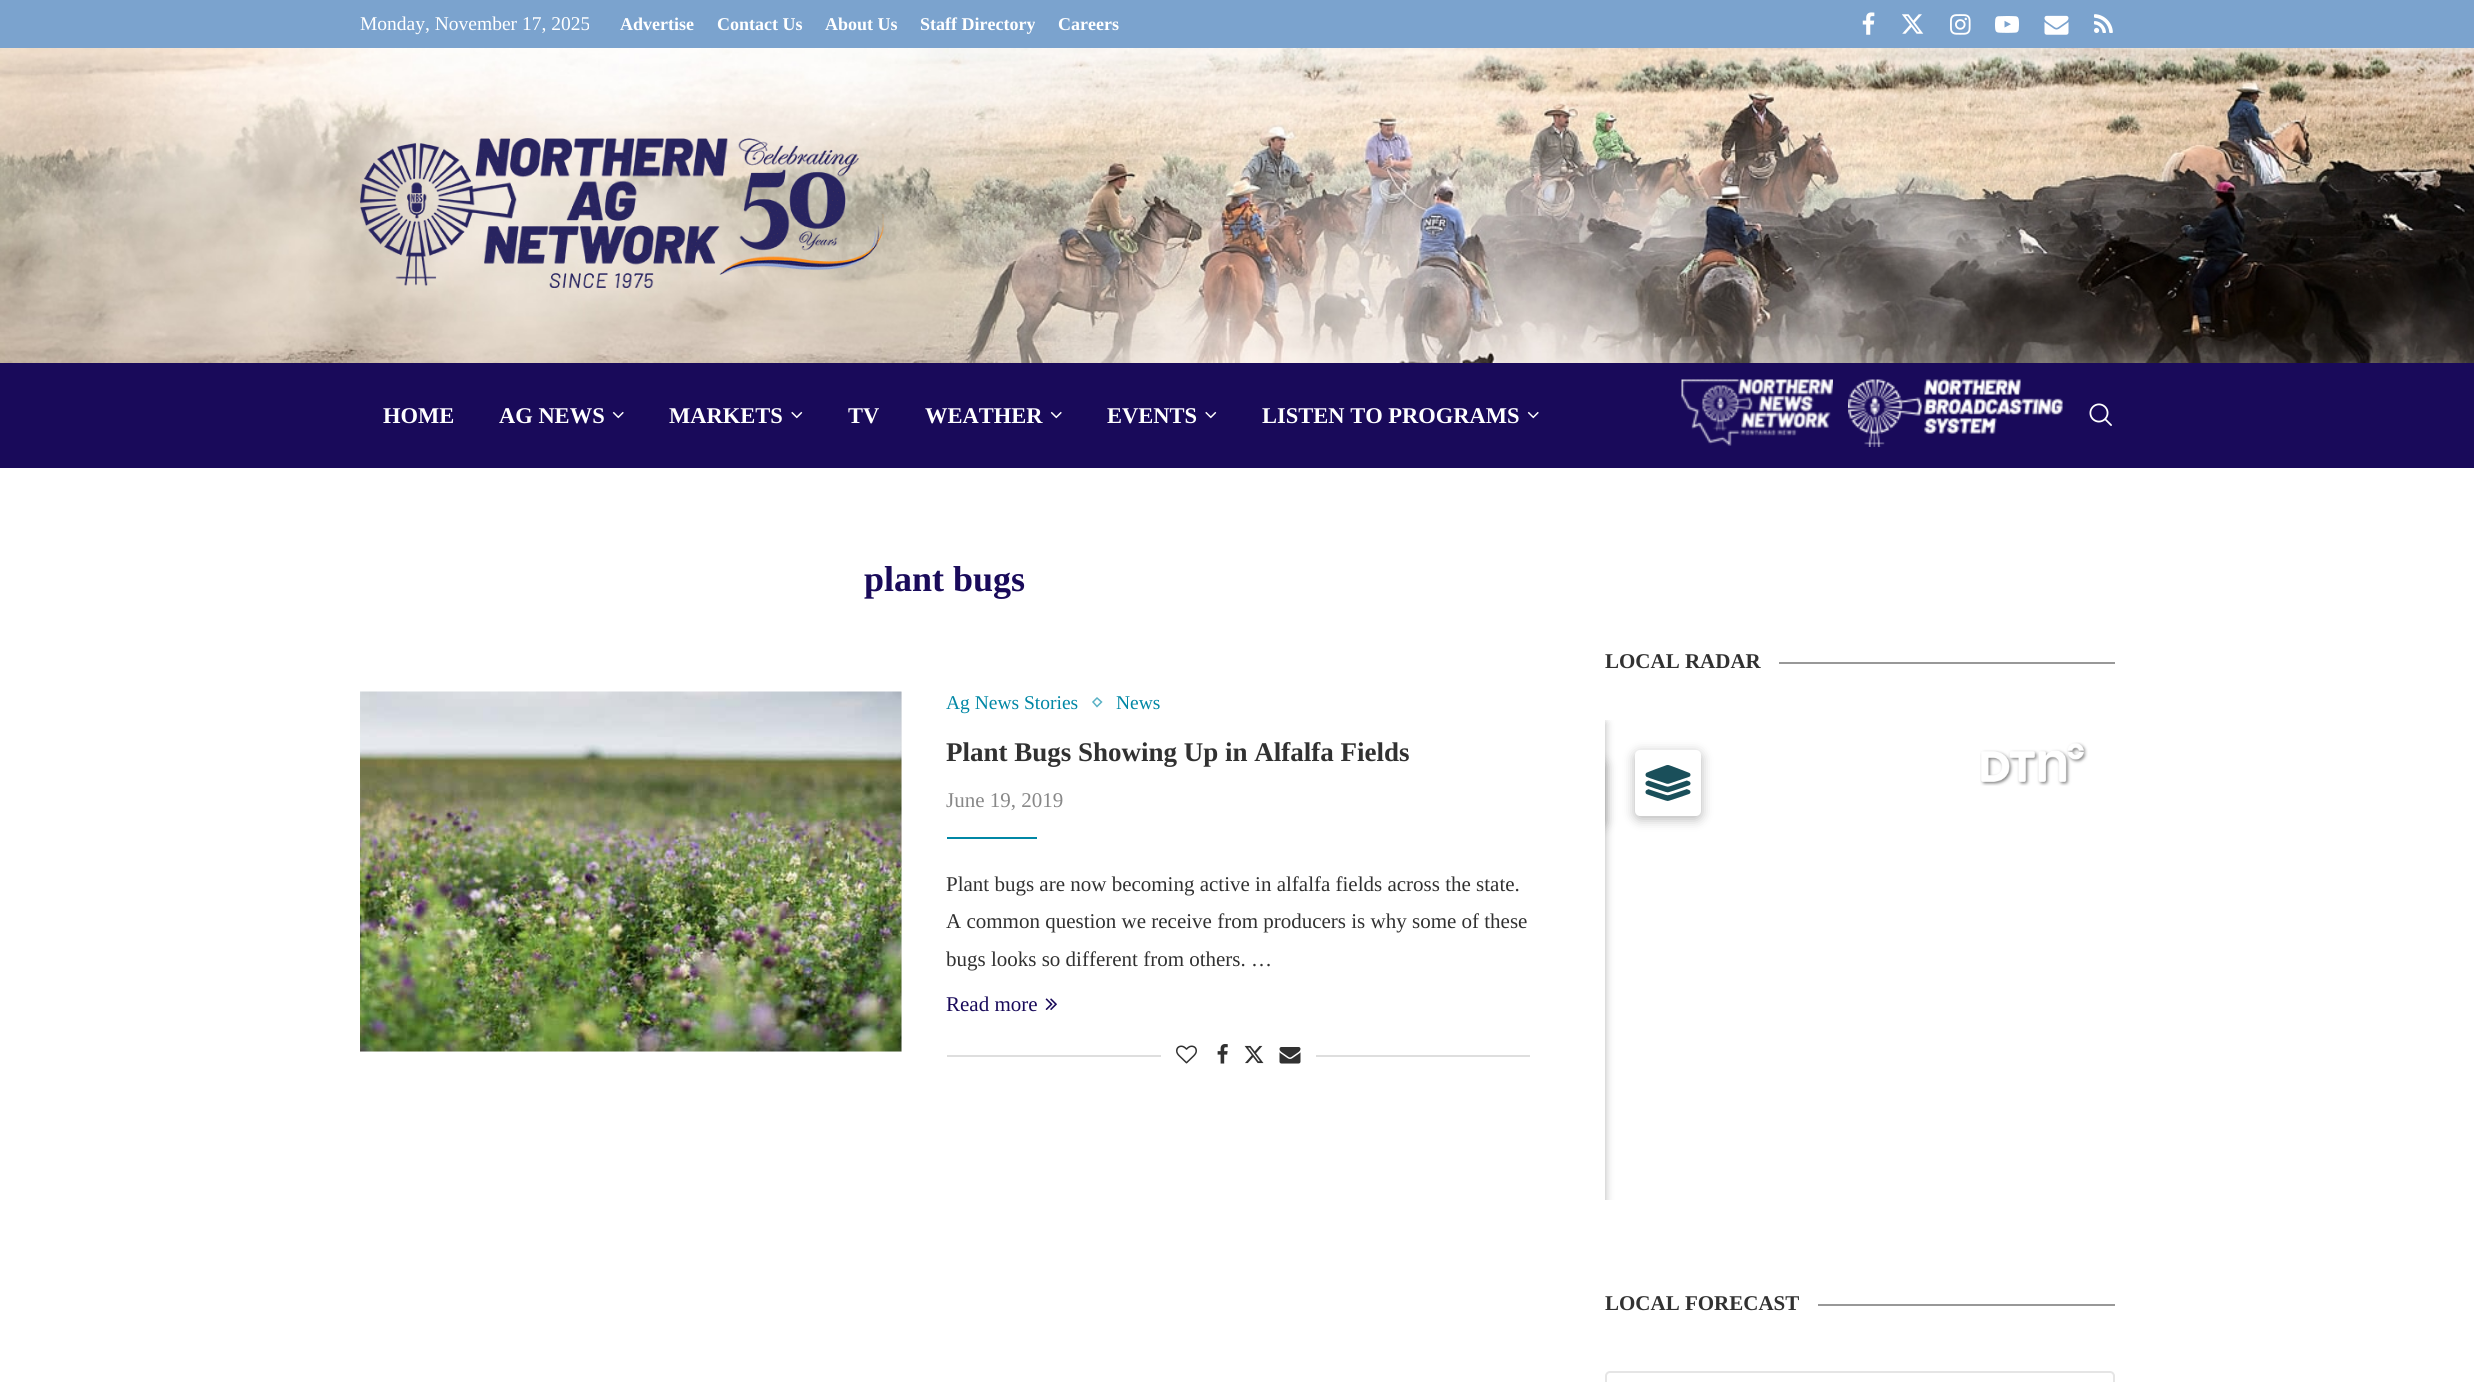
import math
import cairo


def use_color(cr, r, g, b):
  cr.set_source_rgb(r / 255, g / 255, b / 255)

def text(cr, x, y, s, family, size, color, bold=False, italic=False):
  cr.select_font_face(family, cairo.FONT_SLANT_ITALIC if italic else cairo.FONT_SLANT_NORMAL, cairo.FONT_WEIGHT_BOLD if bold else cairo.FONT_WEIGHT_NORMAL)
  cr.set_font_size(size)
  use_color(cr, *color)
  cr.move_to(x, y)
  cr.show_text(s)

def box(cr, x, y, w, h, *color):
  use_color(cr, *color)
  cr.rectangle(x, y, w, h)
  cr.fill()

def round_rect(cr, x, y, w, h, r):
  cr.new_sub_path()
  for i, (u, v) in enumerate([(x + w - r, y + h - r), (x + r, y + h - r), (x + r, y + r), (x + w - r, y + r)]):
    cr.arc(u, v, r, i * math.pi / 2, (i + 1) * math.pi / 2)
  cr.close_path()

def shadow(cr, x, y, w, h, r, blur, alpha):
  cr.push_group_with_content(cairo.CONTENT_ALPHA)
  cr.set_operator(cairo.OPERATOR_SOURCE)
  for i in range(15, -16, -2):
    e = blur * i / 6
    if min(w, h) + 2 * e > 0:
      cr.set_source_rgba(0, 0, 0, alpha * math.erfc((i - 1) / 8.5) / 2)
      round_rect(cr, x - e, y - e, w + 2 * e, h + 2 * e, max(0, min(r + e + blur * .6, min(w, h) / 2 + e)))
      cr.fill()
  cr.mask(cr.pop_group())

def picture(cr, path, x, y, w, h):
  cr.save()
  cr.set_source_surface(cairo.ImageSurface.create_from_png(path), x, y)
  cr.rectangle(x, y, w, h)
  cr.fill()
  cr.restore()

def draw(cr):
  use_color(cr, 255, 255, 255)
  cr.paint()
  box(cr, 0, 0, 2474, 48, 123, 163, 206)
  picture(cr, "img_01.png", 1862, 12, 13, 23)
  picture(cr, "img_02.png", 1902, 14, 22, 20)
  picture(cr, "img_03.png", 1950, 14, 21, 21)
  picture(cr, "img_04.png", 1995, 16, 24, 17)
  picture(cr, "img_05.png", 2044, 15, 25, 20)
  picture(cr, "img_06.png", 2094, 14, 19, 19)
  picture(cr, "img_07.png", 0, 48, 2474, 315)
  picture(cr, "img_08.png", 360, 138, 524, 150)
  box(cr, 0, 363, 2474, 105, 25, 10, 90)
  picture(cr, "img_09.png", 612, 411, 12, 8)
  picture(cr, "img_10.png", 791, 411, 12, 8)
  picture(cr, "img_09.png", 1050, 411, 12, 8)
  picture(cr, "img_10.png", 1205, 411, 12, 8)
  picture(cr, "img_09.png", 1527, 411, 12, 8)
  picture(cr, "img_11.png", 1681, 379, 152, 67)
  picture(cr, "img_12.png", 1848, 379, 215, 68)
  picture(cr, "img_13.png", 2089, 403, 23, 23)
  box(cr, 360, 692, 542, 360, 245, 245, 245)
  picture(cr, "img_14.png", 360, 691, 542, 361)
  cr.new_path()
  cr.move_to(1097, 698)
  cr.line_to(1101.5, 702)
  cr.line_to(1097, 706.5)
  cr.line_to(1093, 702)
  cr.close_path()
  use_color(cr, 89, 177, 197)
  cr.set_line_width(1.5)
  cr.stroke()
  box(cr, 947, 837, 90, 2, 0, 135, 165)
  picture(cr, "img_15.png", 1045, 998, 12, 12)
  box(cr, 947, 1055, 583, 2, 222, 222, 222)
  cr.save()
  cr.rectangle(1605, 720, 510, 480)
  cr.clip()
  use_color(cr, 0, 0, 0)
  shadow(cr, 1193, 723, 412, 480, 0, 4.5, 0.3)
  cr.restore()
  box(cr, 1161, 1055, 155, 2, 255, 255, 255)
  picture(cr, "img_16.png", 1176, 1045, 21, 19)
  picture(cr, "img_17.png", 1217, 1044, 11, 20)
  picture(cr, "img_18.png", 1244, 1045, 20, 19)
  picture(cr, "img_19.png", 1279, 1047, 22, 17)
  box(cr, 1779, 662, 336, 2, 152, 152, 152)
  cr.save()
  cr.rectangle(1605, 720, 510, 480)
  cr.clip()
  use_color(cr, 0, 0, 0)
  shadow(cr, 1545, 761, 60, 66, 5, 6, 0.3)
  cr.restore()
  use_color(cr, 0, 0, 0)
  shadow(cr, 1635, 753, 66, 66, 5, 6, 0.3)
  use_color(cr, 255, 255, 255)
  round_rect(cr, 1635, 750, 66, 66, 5)
  cr.fill()
  picture(cr, "img_20.png", 1645, 765, 46, 36)
  picture(cr, "img_21.png", 1980, 742, 108, 44)
  box(cr, 1818, 1304, 297, 2, 152, 152, 152)
  round_rect(cr, 1606, 1372, 508, 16, 4)
  use_color(cr, 229, 229, 229)
  cr.set_line_width(2)
  cr.stroke()
  text(cr, 360, 30, "Monday, November 17, 2025", "Liberation Serif", 19.5, (255, 255, 255))
  text(cr, 620, 30, "Advertise", "Liberation Serif", 18, (255, 255, 255), bold=True)
  text(cr, 717, 30, "Contact Us", "Liberation Serif", 18, (255, 255, 255), bold=True)
  text(cr, 825, 30, "About Us", "Liberation Serif", 18, (255, 255, 255), bold=True)
  text(cr, 920, 30, "Staff Directory", "Liberation Serif", 18, (255, 255, 255), bold=True)
  text(cr, 1058, 30, "Careers", "Liberation Serif", 18, (255, 255, 255), bold=True)
  text(cr, 383, 423, "HOME", "Liberation Serif", 22.5, (255, 255, 255), bold=True)
  text(cr, 499, 423, "AG NEWS", "Liberation Serif", 22.5, (255, 255, 255), bold=True)
  text(cr, 669, 423, "MARKETS", "Liberation Serif", 22.5, (255, 255, 255), bold=True)
  text(cr, 848, 423, "TV", "Liberation Serif", 22.5, (255, 255, 255), bold=True)
  text(cr, 925, 423, "WEATHER", "Liberation Serif", 22.5, (255, 255, 255), bold=True)
  text(cr, 1107, 423, "EVENTS", "Liberation Serif", 22.5, (255, 255, 255), bold=True)
  text(cr, 1262, 423, "LISTEN TO PROGRAMS", "Liberation Serif", 22.5, (255, 255, 255), bold=True)
  text(cr, 864, 591, "plant bugs", "Liberation Serif", 36, (25, 10, 90), bold=True)
  text(cr, 946, 709, "Ag News Stories", "Liberation Serif", 19.5, (0, 135, 165))
  text(cr, 1116, 709, "News", "Liberation Serif", 19.5, (0, 135, 165))
  text(cr, 946, 761, "Plant Bugs Showing Up in Alfalfa Fields", "Liberation Serif", 27, (49, 49, 49), bold=True)
  text(cr, 946, 807, "June 19, 2019", "Liberation Serif", 21, (136, 136, 136))
  text(cr, 946, 891, "Plant bugs are now becoming active in alfalfa fields across the state.", "Liberation Serif", 21, (49, 49, 49))
  text(cr, 946, 928, "A common question we receive from producers is why some of these", "Liberation Serif", 21, (49, 49, 49))
  text(cr, 946, 966, "bugs looks so different from others. …", "Liberation Serif", 21, (49, 49, 49))
  text(cr, 946, 1011, "Read more", "Liberation Serif", 21, (25, 10, 90))
  text(cr, 1605, 668, "LOCAL RADAR", "Liberation Serif", 21, (49, 49, 49), bold=True)
  text(cr, 1605, 1310, "LOCAL FORECAST", "Liberation Serif", 21, (49, 49, 49), bold=True)


surface = cairo.ImageSurface(cairo.FORMAT_RGB24, 2474, 1382)
cr = cairo.Context(surface)
options = cairo.FontOptions()
options.set_hint_metrics(cairo.HINT_METRICS_OFF)
options.set_hint_style(cairo.HINT_STYLE_NONE)
cr.set_font_options(options)
cr.set_miter_limit(4)
draw(cr)
surface.write_to_png("out.png")
